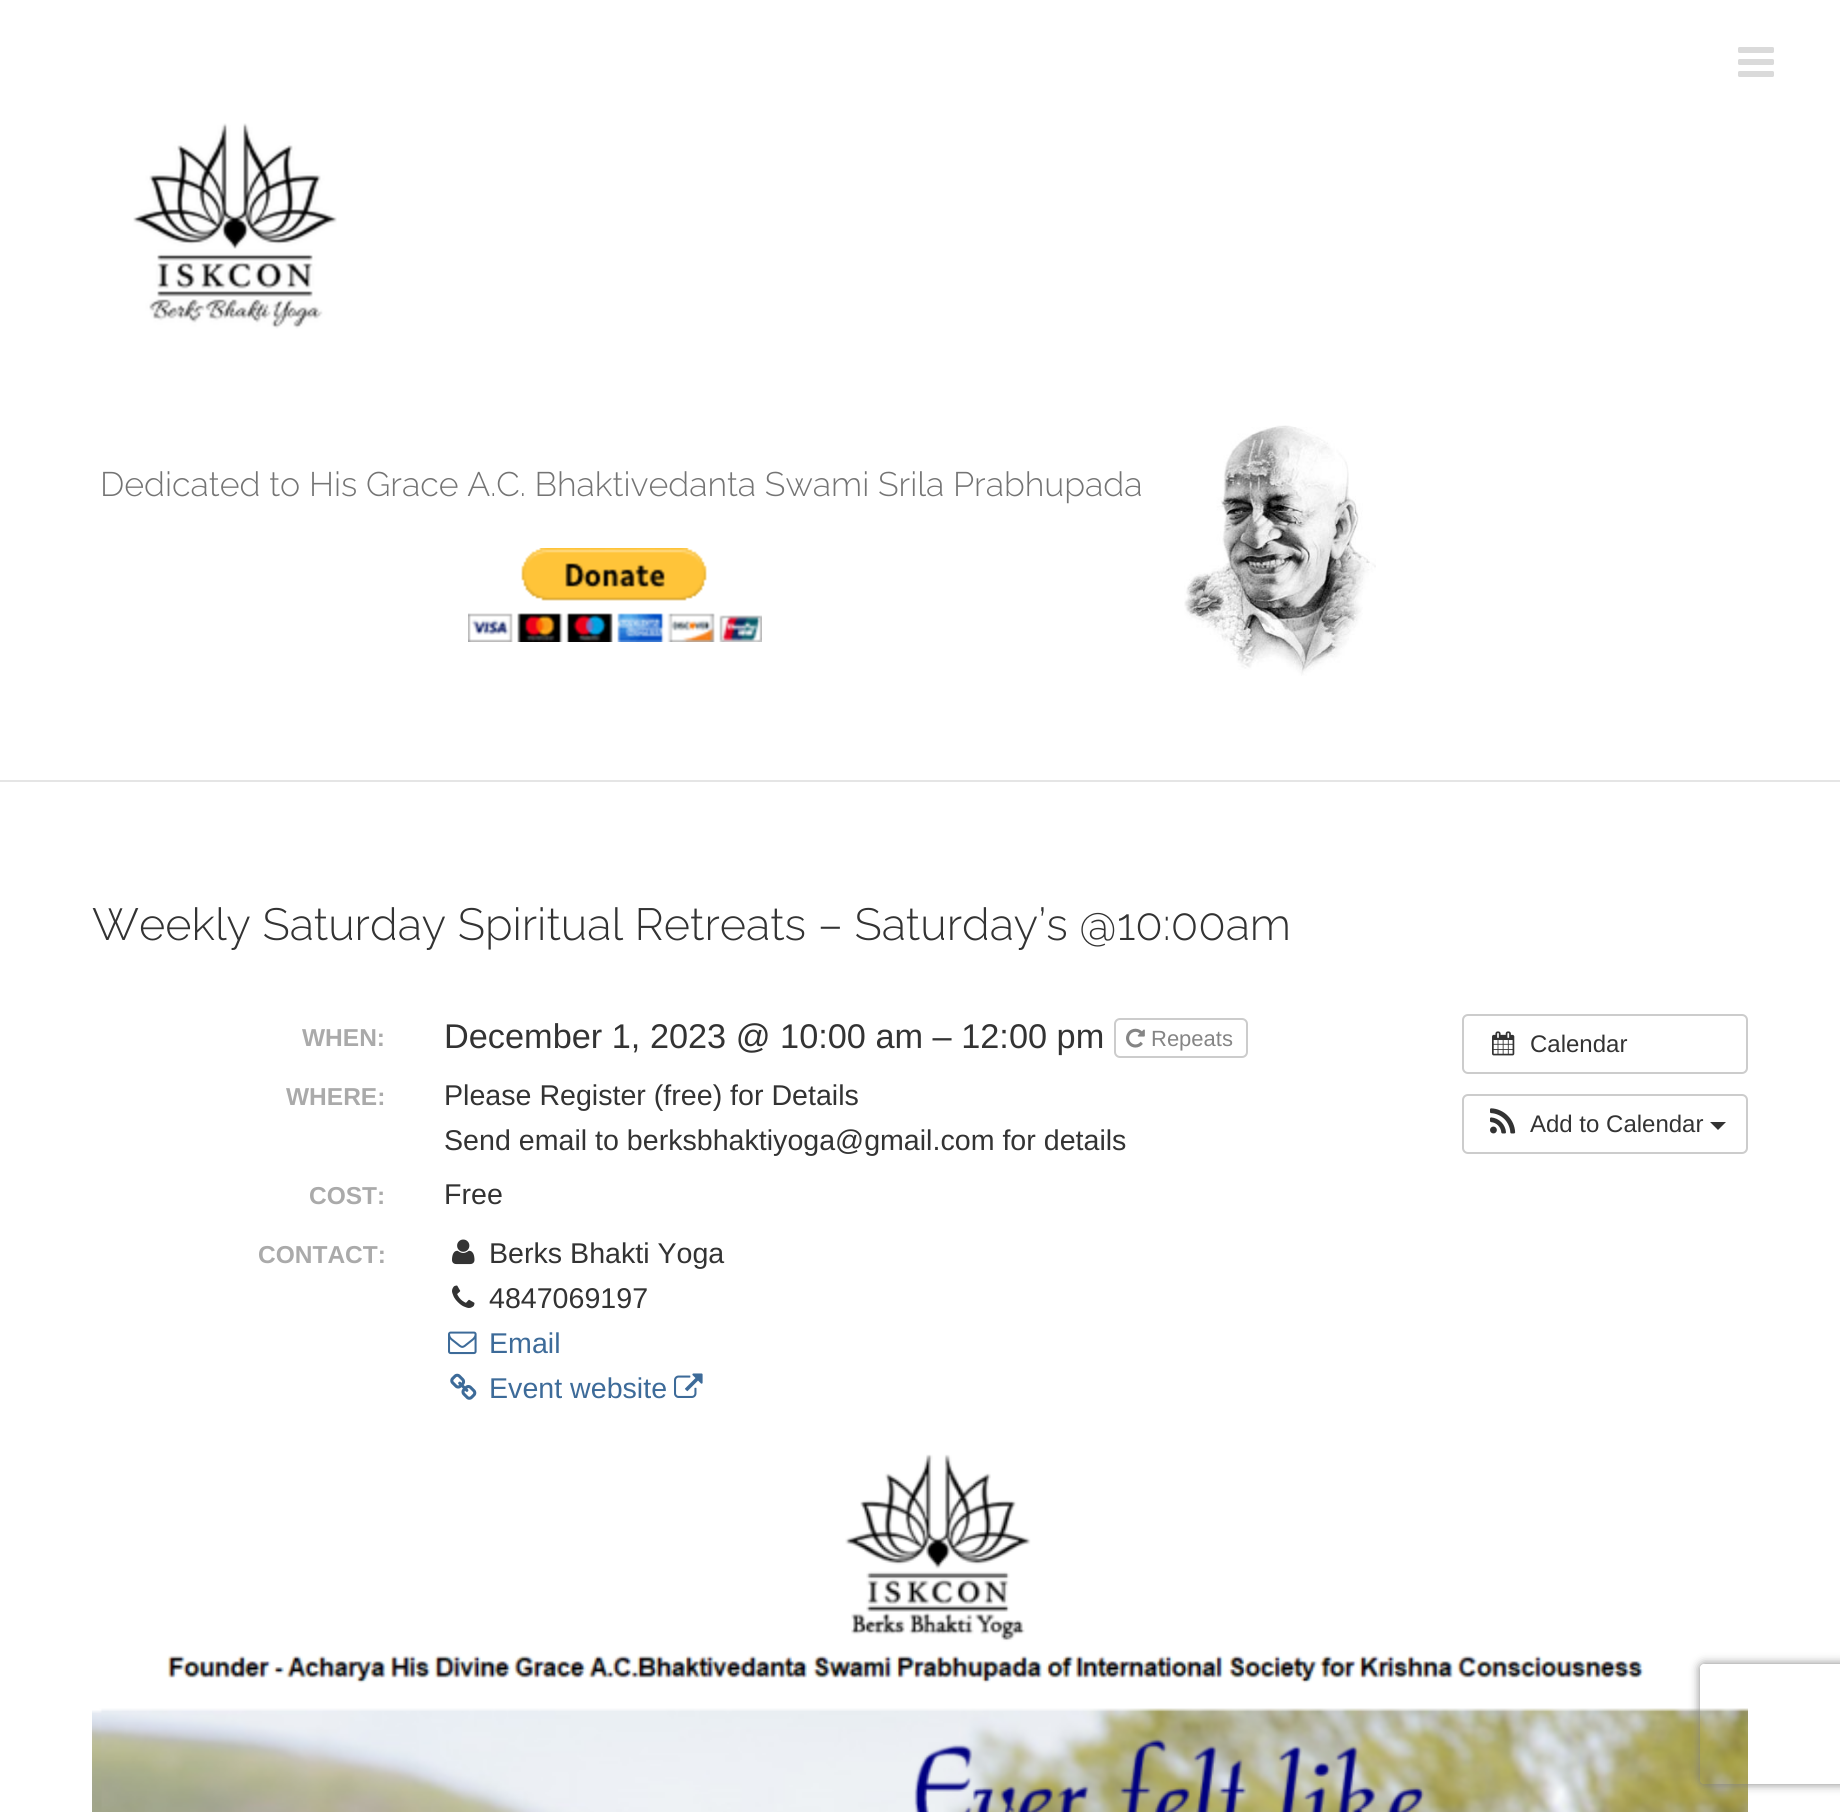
import math
import cairo


def use_color(cr, r, g, b):
  cr.set_source_rgb(r / 255, g / 255, b / 255)

def text(cr, x, y, s, family, size, color, bold=False, italic=False):
  cr.select_font_face(family, cairo.FONT_SLANT_ITALIC if italic else cairo.FONT_SLANT_NORMAL, cairo.FONT_WEIGHT_BOLD if bold else cairo.FONT_WEIGHT_NORMAL)
  cr.set_font_size(size)
  use_color(cr, *color)
  cr.move_to(x, y)
  cr.show_text(s)

def box(cr, x, y, w, h, *color):
  use_color(cr, *color)
  cr.rectangle(x, y, w, h)
  cr.fill()

def round_rect(cr, x, y, w, h, r):
  cr.new_sub_path()
  for i, (u, v) in enumerate([(x + w - r, y + h - r), (x + r, y + h - r), (x + r, y + r), (x + w - r, y + r)]):
    cr.arc(u, v, r, i * math.pi / 2, (i + 1) * math.pi / 2)
  cr.close_path()

def shadow(cr, x, y, w, h, r, blur, alpha):
  cr.push_group_with_content(cairo.CONTENT_ALPHA)
  cr.set_operator(cairo.OPERATOR_SOURCE)
  for i in range(15, -16, -2):
    e = blur * i / 6
    if min(w, h) + 2 * e > 0:
      cr.set_source_rgba(0, 0, 0, alpha * math.erfc((i - 1) / 8.5) / 2)
      round_rect(cr, x - e, y - e, w + 2 * e, h + 2 * e, max(0, min(r + e + blur * .6, min(w, h) / 2 + e)))
      cr.fill()
  cr.mask(cr.pop_group())

def picture(cr, path, x, y, w, h):
  cr.save()
  cr.set_source_surface(cairo.ImageSurface.create_from_png(path), x, y)
  cr.rectangle(x, y, w, h)
  cr.fill()
  cr.restore()

def draw(cr):
  use_color(cr, 255, 255, 255)
  cr.paint()
  box(cr, 0, 780, 1840, 2, 229, 229, 229)
  picture(cr, "img_01.png", 1738, 47, 36, 30)
  picture(cr, "img_02.png", 133, 123, 204, 206)
  picture(cr, "img_03.png", 1184, 425, 192, 251)
  picture(cr, "img_04.png", 468, 548, 294, 94)
  round_rect(cr, 1115, 1019, 132, 38, 5)
  use_color(cr, 204, 204, 204)
  cr.stroke()
  picture(cr, "img_05.png", 1126, 1028, 19, 20)
  picture(cr, "img_06.png", 452, 1239, 23, 26)
  picture(cr, "img_07.png", 452, 1285, 23, 23)
  picture(cr, "img_08.png", 448, 1331, 29, 24)
  picture(cr, "img_09.png", 450, 1373, 27, 27)
  picture(cr, "img_10.png", 674, 1373, 29, 25)
  round_rect(cr, 1463, 1015, 284, 58, 5)
  cr.stroke()
  picture(cr, "img_11.png", 1492, 1031, 23, 25)
  round_rect(cr, 1463, 1095, 284, 58, 5)
  cr.stroke()
  picture(cr, "img_12.png", 1490, 1108, 26, 26)
  use_color(cr, 51, 51, 51)
  cr.new_path()
  cr.move_to(1710, 1122)
  cr.line_to(1726, 1122)
  cr.line_to(1718, 1130)
  cr.close_path()
  cr.fill()
  picture(cr, "img_13.png", 92, 1454, 1656, 358)
  cr.save()
  cr.set_fill_rule(cairo.FILL_RULE_EVEN_ODD)
  cr.new_path()
  cr.move_to(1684, 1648)
  cr.line_to(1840, 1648)
  cr.line_to(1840, 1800)
  cr.line_to(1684, 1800)
  cr.close_path()
  cr.move_to(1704, 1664)
  cr.line_to(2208, 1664)
  cr.curve_to(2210, 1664, 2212, 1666, 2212, 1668)
  cr.line_to(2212, 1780)
  cr.curve_to(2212, 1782, 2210, 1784, 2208, 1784)
  cr.line_to(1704, 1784)
  cr.curve_to(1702, 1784, 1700, 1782, 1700, 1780)
  cr.line_to(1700, 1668)
  cr.curve_to(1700, 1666, 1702, 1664, 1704, 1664)
  cr.close_path()
  cr.clip()
  use_color(cr, 128, 128, 128)
  shadow(cr, 1700, 1664, 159, 120, 4, 5, 1)
  cr.restore()
  text(cr, 100, 496, "Dedicated to His Grace A.C. Bhaktivedanta Swami Srila Prabhupada", "Raleway Thin", 34, (116, 116, 116))
  text(cr, 92, 940, "Weekly Saturday Spiritual Retreats – Saturday’s @10:00am", "Raleway Thin", 45, (51, 51, 51))
  text(cr, 302, 1046, "WHEN:", "Liberation Sans", 24.5, (170, 170, 170), bold=True)
  text(cr, 444, 1048, "December 1, 2023 @ 10:00 am – 12:00 pm", "Liberation Sans", 34.3, (51, 51, 51))
  text(cr, 1151, 1046, "Repeats", "Liberation Sans", 22, (133, 133, 133))
  text(cr, 286, 1105, "WHERE:", "Liberation Sans", 24.5, (170, 170, 170), bold=True)
  text(cr, 444, 1105, "Please Register (free) for Details", "Liberation Sans", 28.6, (51, 51, 51))
  text(cr, 444, 1150, "Send email to berksbhaktiyoga@gmail.com for details", "Liberation Sans", 28.6, (51, 51, 51))
  text(cr, 309, 1204, "COST:", "Liberation Sans", 24.5, (170, 170, 170), bold=True)
  text(cr, 444, 1204, "Free", "Liberation Sans", 28.6, (51, 51, 51))
  text(cr, 258, 1263, "CONTACT:", "Liberation Sans", 24.5, (170, 170, 170), bold=True)
  text(cr, 489, 1263, "Berks Bhakti Yoga", "Liberation Sans", 28.6, (51, 51, 51))
  text(cr, 489, 1308, "4847069197", "Liberation Sans", 28.6, (51, 51, 51))
  text(cr, 489, 1353, "Email", "Liberation Sans", 28.6, (61, 107, 153))
  text(cr, 489, 1398, "Event website", "Liberation Sans", 28.6, (61, 107, 153))
  text(cr, 1530, 1052, "Calendar", "Liberation Sans", 24, (51, 51, 51))
  text(cr, 1530, 1132, "Add to Calendar", "Liberation Sans", 24, (51, 51, 51))


surface = cairo.ImageSurface(cairo.FORMAT_RGB24, 1840, 1812)
cr = cairo.Context(surface)
options = cairo.FontOptions()
options.set_hint_metrics(cairo.HINT_METRICS_OFF)
options.set_hint_style(cairo.HINT_STYLE_NONE)
cr.set_font_options(options)
cr.set_miter_limit(4)
draw(cr)
surface.write_to_png("out.png")
